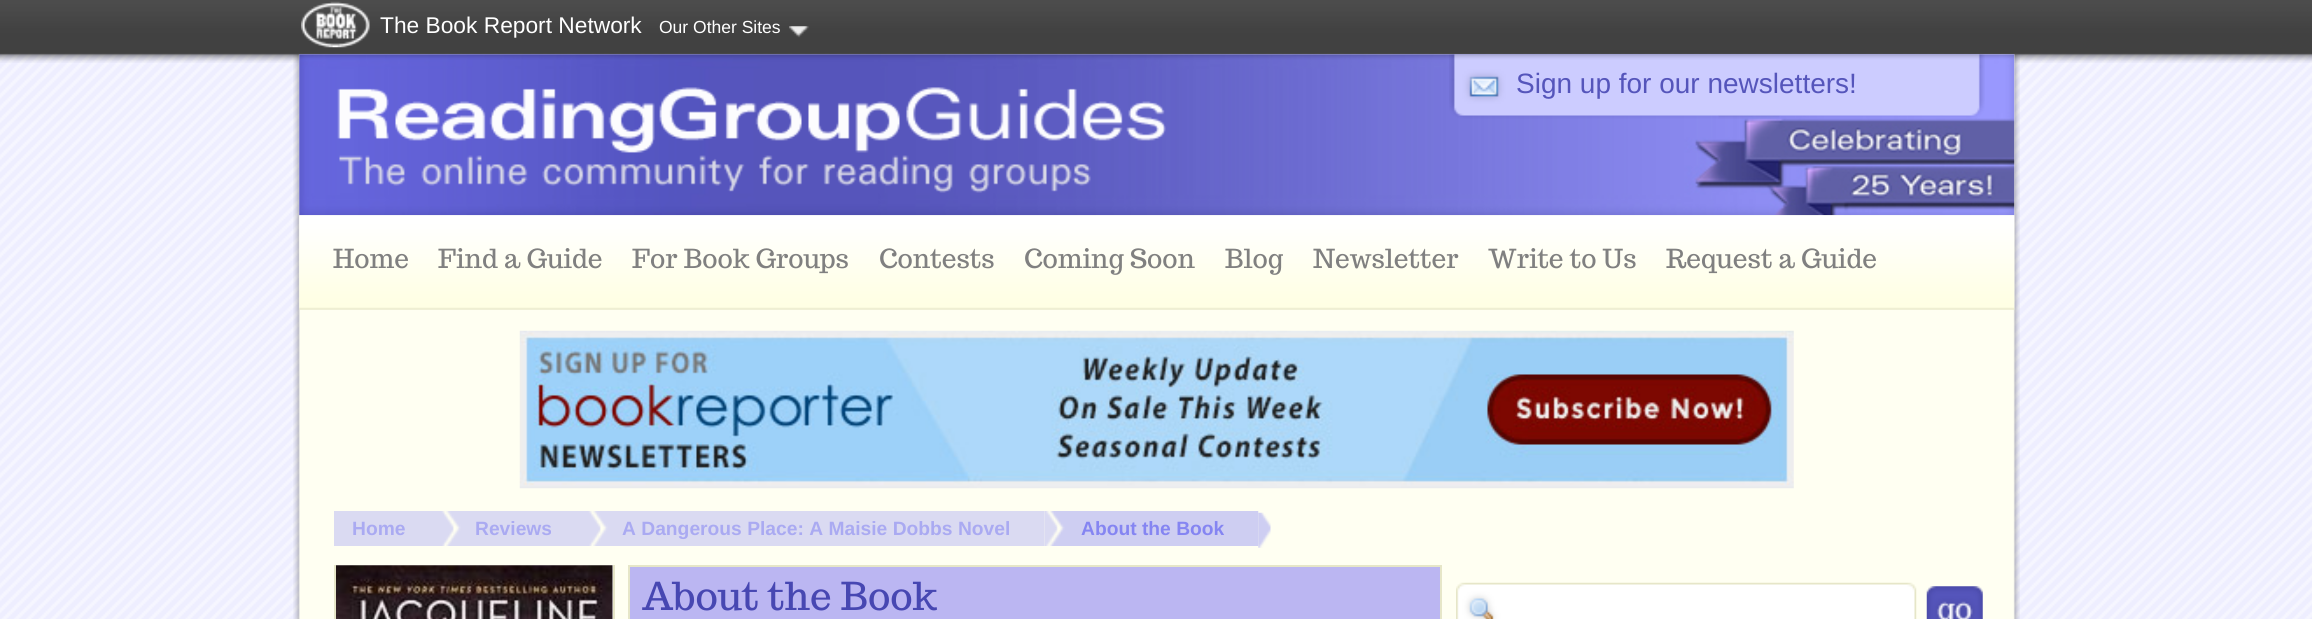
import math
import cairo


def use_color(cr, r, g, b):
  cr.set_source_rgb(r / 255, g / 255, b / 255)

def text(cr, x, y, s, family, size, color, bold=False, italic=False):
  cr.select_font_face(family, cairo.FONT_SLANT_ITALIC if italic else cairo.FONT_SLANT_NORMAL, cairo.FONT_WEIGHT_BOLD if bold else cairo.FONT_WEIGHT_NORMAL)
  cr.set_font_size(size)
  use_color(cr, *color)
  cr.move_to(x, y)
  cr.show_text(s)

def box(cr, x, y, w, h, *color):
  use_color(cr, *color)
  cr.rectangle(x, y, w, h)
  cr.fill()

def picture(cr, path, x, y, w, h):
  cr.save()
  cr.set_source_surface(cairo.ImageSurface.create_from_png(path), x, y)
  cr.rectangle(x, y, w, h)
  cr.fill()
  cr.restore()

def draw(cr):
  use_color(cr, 255, 255, 255)
  cr.paint()
  picture(cr, "img_01.png", 0, 53, 2312, 566)
  picture(cr, "img_02.png", 0, 0, 2312, 63)
  picture(cr, "img_03.png", 301, 1, 69, 47)
  picture(cr, "img_04.png", 789, 26, 20, 12)
  picture(cr, "img_05.png", 293, 54, 1727, 565)
  picture(cr, "img_06.png", 299, 54, 1716, 162)
  picture(cr, "img_07.png", 337, 87, 829, 106)
  picture(cr, "img_08.png", 1449, 54, 536, 65)
  picture(cr, "img_09.png", 299, 215, 1716, 95)
  picture(cr, "img_10.png", 519, 330, 1275, 159)
  picture(cr, "img_11.png", 1258, 512, 13, 36)
  box(cr, 334, 511, 107, 35, 218, 218, 242)
  picture(cr, "img_12.png", 441, 511, 147, 35)
  picture(cr, "img_13.png", 588, 511, 457, 35)
  picture(cr, "img_14.png", 1045, 511, 214, 35)
  box(cr, 336, 565, 277, 54, 255, 255, 255)
  box(cr, 613, 565, 2, 54, 230, 230, 200)
  box(cr, 334, 565, 2, 54, 230, 230, 200)
  picture(cr, "img_15.png", 336, 565, 277, 54)
  cr.rectangle(629, 566, 812, 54)
  cr.stroke()
  box(cr, 630, 567, 810, 52, 187, 182, 242)
  picture(cr, "img_16.png", 1456, 582, 461, 37)
  picture(cr, "img_17.png", 1926, 586, 57, 33)
  text(cr, 380, 33, "The Book Report Network", "Liberation Sans", 22.75, (255, 255, 255))
  text(cr, 659, 33, "Our Other Sites", "Liberation Sans", 17.5, (255, 255, 255))
  text(cr, 1516, 93, "Sign up for our newsletters!", "Liberation Sans", 28, (85, 85, 187))
  text(cr, 333, 268, "Home", "Trocchi", 26.25, (128, 128, 128))
  text(cr, 438, 268, "Find a Guide", "Trocchi", 26.25, (128, 128, 128))
  text(cr, 632, 268, "For Book Groups", "Trocchi", 26.25, (128, 128, 128))
  text(cr, 879, 268, "Contests", "Trocchi", 26.25, (128, 128, 128))
  text(cr, 1024, 268, "Coming Soon", "Trocchi", 26.25, (128, 128, 128))
  text(cr, 1225, 268, "Blog", "Trocchi", 26.25, (128, 128, 128))
  text(cr, 1313, 268, "Newsletter", "Trocchi", 26.25, (128, 128, 128))
  text(cr, 1488, 268, "Write to Us", "Trocchi", 26.25, (128, 128, 128))
  text(cr, 1666, 268, "Request a Guide", "Trocchi", 26.25, (128, 128, 128))
  text(cr, 352, 535, "Home", "Liberation Sans", 19.25, (170, 170, 242), bold=True)
  text(cr, 475, 535, "Reviews", "Liberation Sans", 19.25, (170, 170, 242), bold=True)
  text(cr, 622, 535, "A Dangerous Place: A Maisie Dobbs Novel", "Liberation Sans", 19.25, (170, 170, 242), bold=True)
  text(cr, 1081, 535, "About the Book", "Liberation Sans", 19.25, (133, 133, 242), bold=True)
  text(cr, 642, 610, "About the Book", "Trocchi", 38.5, (71, 71, 178))


surface = cairo.ImageSurface(cairo.FORMAT_RGB24, 2312, 619)
cr = cairo.Context(surface)
options = cairo.FontOptions()
options.set_hint_metrics(cairo.HINT_METRICS_OFF)
options.set_hint_style(cairo.HINT_STYLE_NONE)
cr.set_font_options(options)
cr.set_miter_limit(4)
draw(cr)
surface.write_to_png("out.png")
